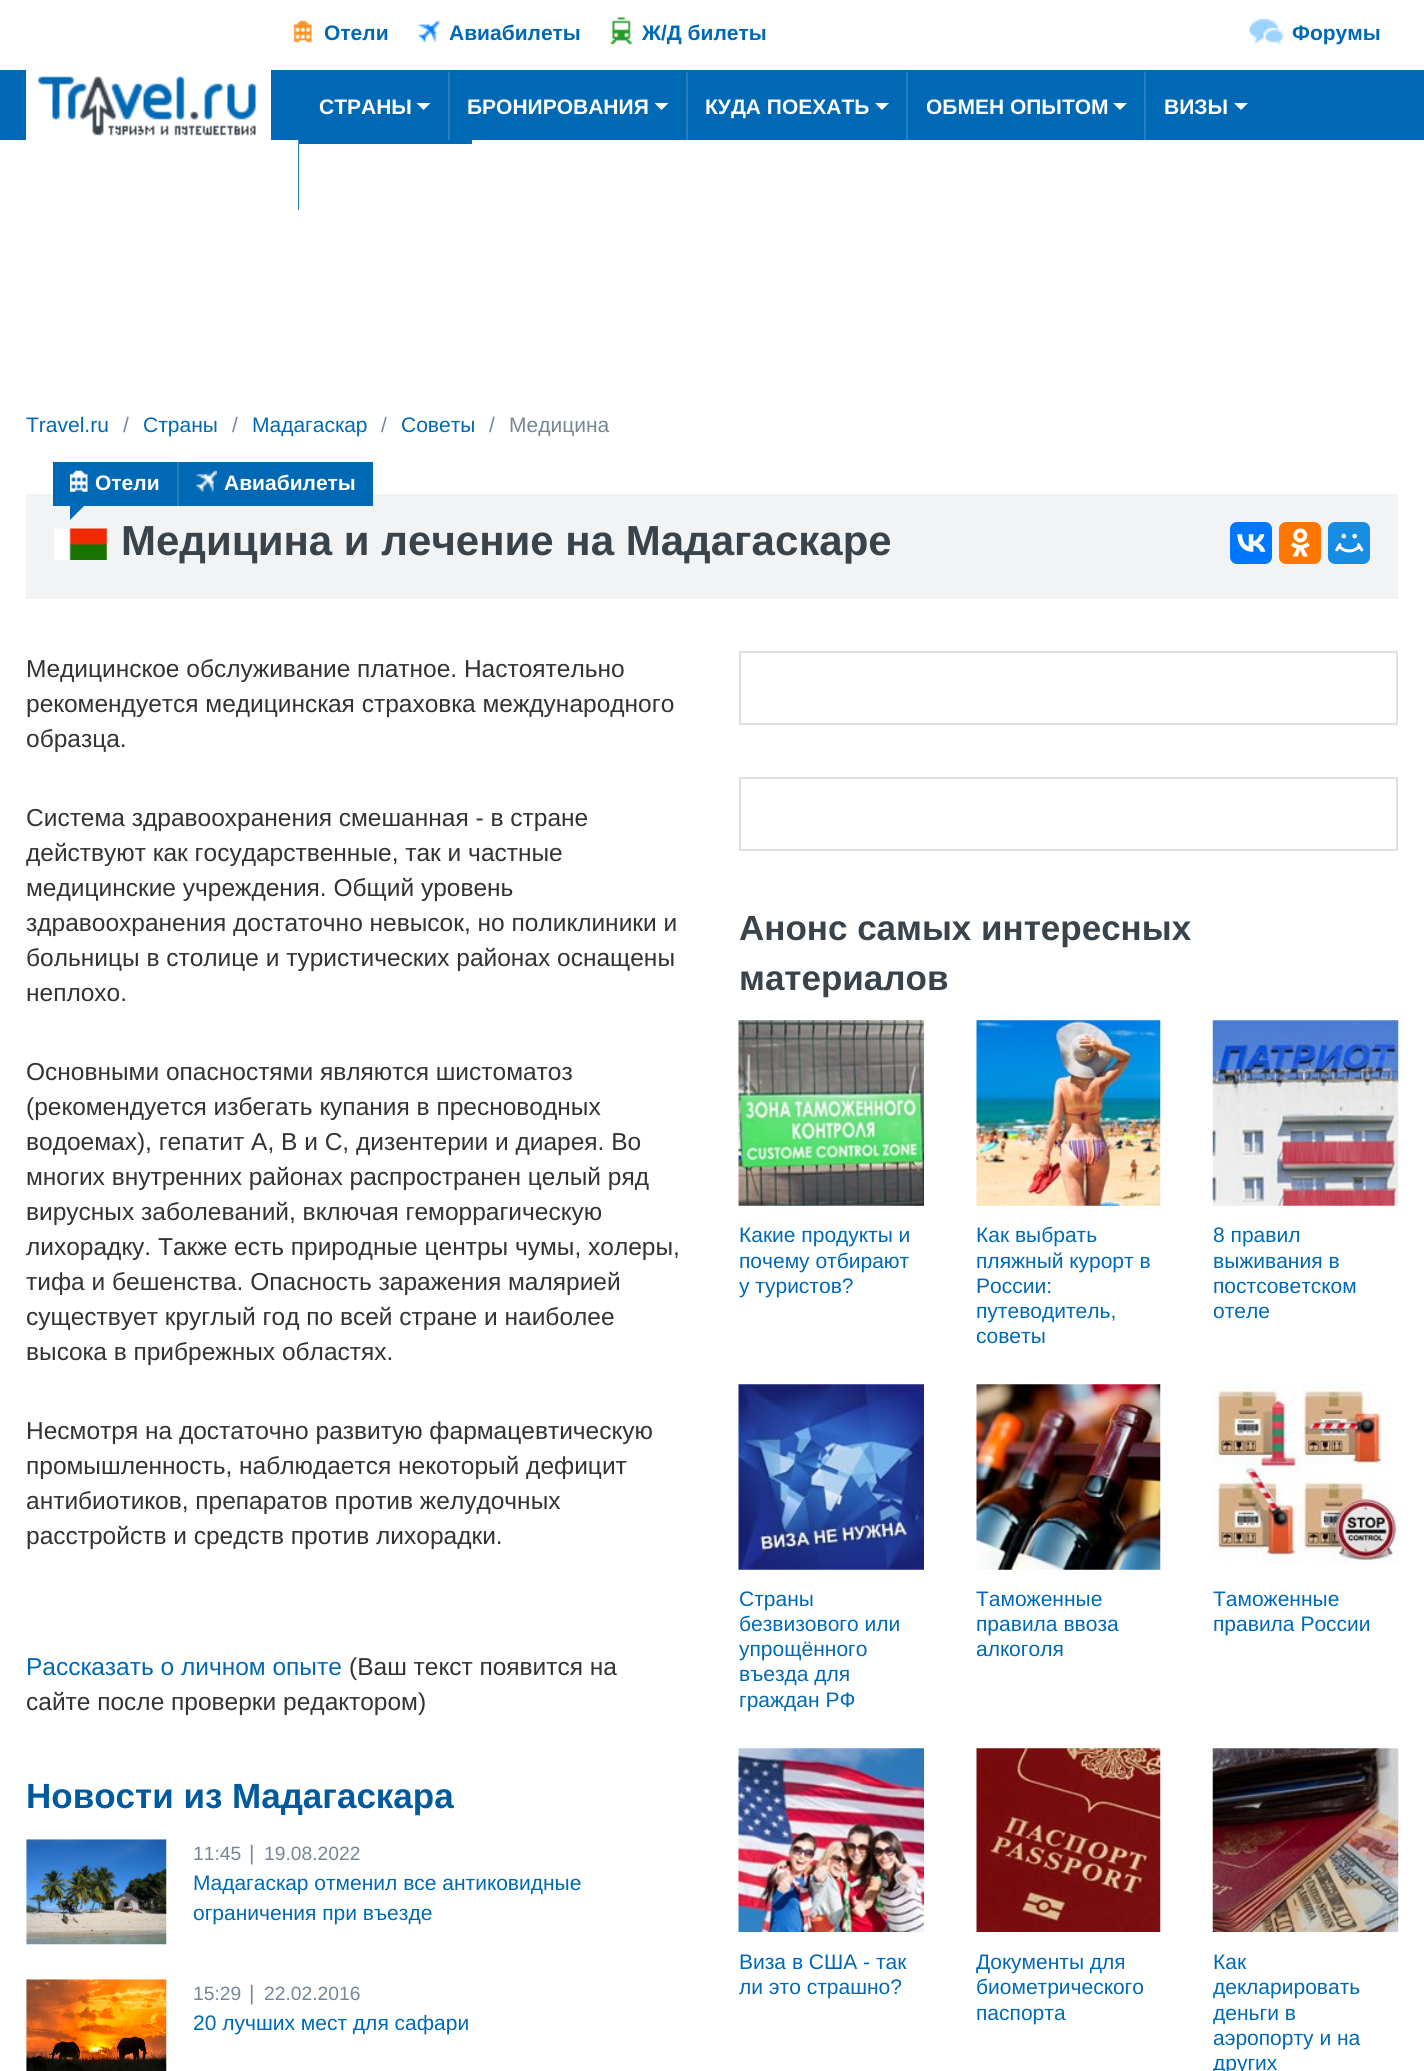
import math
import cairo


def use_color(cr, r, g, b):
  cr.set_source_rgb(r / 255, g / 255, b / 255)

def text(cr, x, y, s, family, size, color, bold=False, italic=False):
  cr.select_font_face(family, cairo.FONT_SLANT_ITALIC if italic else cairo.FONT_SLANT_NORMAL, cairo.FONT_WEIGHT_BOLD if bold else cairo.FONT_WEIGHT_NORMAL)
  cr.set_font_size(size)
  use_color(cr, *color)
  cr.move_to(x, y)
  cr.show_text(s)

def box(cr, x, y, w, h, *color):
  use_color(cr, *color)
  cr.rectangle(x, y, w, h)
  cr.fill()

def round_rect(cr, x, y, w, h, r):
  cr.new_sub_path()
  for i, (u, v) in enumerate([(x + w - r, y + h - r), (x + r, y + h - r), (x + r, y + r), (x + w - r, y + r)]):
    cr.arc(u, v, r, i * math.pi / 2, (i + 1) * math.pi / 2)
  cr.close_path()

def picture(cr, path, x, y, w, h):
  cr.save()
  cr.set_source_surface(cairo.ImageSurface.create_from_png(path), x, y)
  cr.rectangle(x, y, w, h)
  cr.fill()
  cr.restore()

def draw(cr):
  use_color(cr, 255, 255, 255)
  cr.paint()
  picture(cr, "img_01.png", 293, 20, 19, 23)
  picture(cr, "img_02.png", 418, 20, 22, 23)
  picture(cr, "img_03.png", 610, 17, 23, 28)
  picture(cr, "img_04.png", 1249, 19, 35, 27)
  box(cr, 0, 70, 1424, 70, 0, 105, 182)
  box(cr, 26, 70, 245, 70, 255, 255, 255)
  picture(cr, "img_05.png", 38, 76, 218, 60)
  cr.new_path()
  cr.move_to(416.5, 103)
  cr.line_to(430.5, 103)
  cr.line_to(423.5, 110)
  cr.close_path()
  cr.fill()
  use_color(cr, 38, 127, 193)
  cr.new_path()
  cr.move_to(448, 140)
  cr.line_to(448, 70)
  cr.line_to(450, 74)
  cr.line_to(450, 140)
  cr.close_path()
  cr.fill()
  use_color(cr, 255, 255, 255)
  cr.new_path()
  cr.move_to(654.5, 103)
  cr.line_to(668.5, 103)
  cr.line_to(661.5, 110)
  cr.close_path()
  cr.fill()
  use_color(cr, 38, 127, 193)
  cr.new_path()
  cr.move_to(686, 140)
  cr.line_to(686, 70)
  cr.line_to(688, 74)
  cr.line_to(688, 140)
  cr.close_path()
  cr.fill()
  use_color(cr, 255, 255, 255)
  cr.new_path()
  cr.move_to(875, 103)
  cr.line_to(889, 103)
  cr.line_to(882, 110)
  cr.close_path()
  cr.fill()
  use_color(cr, 38, 127, 193)
  cr.new_path()
  cr.move_to(906, 140)
  cr.line_to(906, 70)
  cr.line_to(908, 74)
  cr.line_to(908, 140)
  cr.close_path()
  cr.fill()
  use_color(cr, 255, 255, 255)
  cr.new_path()
  cr.move_to(1113, 103)
  cr.line_to(1127, 103)
  cr.line_to(1120, 110)
  cr.close_path()
  cr.fill()
  use_color(cr, 38, 127, 193)
  cr.new_path()
  cr.move_to(1144, 140)
  cr.line_to(1144, 70)
  cr.line_to(1146, 74)
  cr.line_to(1146, 140)
  cr.close_path()
  cr.fill()
  use_color(cr, 255, 255, 255)
  cr.new_path()
  cr.move_to(1234, 103)
  cr.line_to(1248, 103)
  cr.line_to(1241, 110)
  cr.close_path()
  cr.fill()
  use_color(cr, 0, 105, 182)
  cr.new_path()
  cr.move_to(298, 140)
  cr.line_to(472, 140)
  cr.line_to(472, 144)
  cr.line_to(299, 144)
  cr.close_path()
  cr.fill()
  use_color(cr, 38, 127, 193)
  cr.new_path()
  cr.move_to(298, 210)
  cr.line_to(298, 140)
  cr.line_to(299, 144)
  cr.line_to(299, 210)
  cr.close_path()
  cr.fill()
  box(cr, 26, 494, 1372, 105, 241, 243, 244)
  box(cr, 53, 462, 320, 44, 0, 105, 182)
  picture(cr, "img_06.png", 70, 470, 18, 22)
  box(cr, 177, 462, 2, 44, 38, 127, 193)
  picture(cr, "img_07.png", 196, 470, 21, 22)
  use_color(cr, 0, 105, 182)
  cr.new_path()
  cr.move_to(70, 504)
  cr.line_to(86, 504)
  cr.line_to(70, 520)
  cr.close_path()
  cr.fill()
  picture(cr, "img_08.png", 54, 528, 53, 32)
  use_color(cr, 0, 119, 255)
  round_rect(cr, 1230, 522, 42, 42, 7)
  cr.fill()
  picture(cr, "img_09.png", 1237, 534, 29, 18)
  use_color(cr, 255, 119, 0)
  round_rect(cr, 1279, 522, 42, 42, 7)
  cr.fill()
  picture(cr, "img_10.png", 1290, 528, 20, 29)
  use_color(cr, 22, 141, 226)
  round_rect(cr, 1328, 522, 42, 42, 7)
  cr.fill()
  picture(cr, "img_11.png", 1335, 533, 29, 20)
  picture(cr, "img_12.png", 26, 1839, 141, 106)
  picture(cr, "img_13.png", 26, 1979, 141, 92)
  cr.rectangle(740, 652, 657, 72)
  use_color(cr, 221, 225, 227)
  cr.stroke()
  cr.rectangle(740, 778, 657, 72)
  cr.stroke()
  picture(cr, "img_14.png", 738, 1020, 186, 186)
  picture(cr, "img_15.png", 976, 1020, 185, 186)
  picture(cr, "img_16.png", 1212, 1020, 187, 186)
  picture(cr, "img_17.png", 738, 1384, 186, 186)
  picture(cr, "img_18.png", 976, 1384, 185, 186)
  picture(cr, "img_19.png", 1213, 1384, 186, 179)
  picture(cr, "img_20.png", 738, 1748, 186, 184)
  picture(cr, "img_21.png", 976, 1748, 185, 184)
  picture(cr, "img_22.png", 1212, 1748, 187, 184)
  text(cr, 324, 40, "Отели", "Liberation Sans", 21, (0, 105, 182), bold=True)
  text(cr, 449, 40, "Авиабилеты", "Liberation Sans", 21, (0, 105, 182), bold=True)
  text(cr, 642, 40, "Ж/Д билеты", "Liberation Sans", 21, (0, 105, 182), bold=True)
  text(cr, 1292, 40, "Форумы", "Liberation Sans", 21, (0, 105, 182), bold=True)
  text(cr, 319, 114, "СТРАНЫ", "Liberation Sans", 21, (255, 255, 255), bold=True)
  text(cr, 467, 114, "БРОНИРОВАНИЯ", "Liberation Sans", 21, (255, 255, 255), bold=True)
  text(cr, 705, 114, "КУДА ПОЕХАТЬ", "Liberation Sans", 21, (255, 255, 255), bold=True)
  text(cr, 926, 114, "ОБМЕН ОПЫТОМ", "Liberation Sans", 21, (255, 255, 255), bold=True)
  text(cr, 1164, 114, "ВИЗЫ", "Liberation Sans", 21, (255, 255, 255), bold=True)
  text(cr, 26, 432, "Travel.ru", "Liberation Sans", 21, (0, 105, 182))
  text(cr, 123, 432, "/", "Liberation Sans", 21, (118, 134, 150))
  text(cr, 143, 432, "Страны", "Liberation Sans", 21, (0, 105, 182))
  text(cr, 232, 432, "/", "Liberation Sans", 21, (118, 134, 150))
  text(cr, 252, 432, "Мадагаскар", "Liberation Sans", 21, (0, 105, 182))
  text(cr, 381, 432, "/", "Liberation Sans", 21, (118, 134, 150))
  text(cr, 401, 432, "Советы", "Liberation Sans", 21, (0, 105, 182))
  text(cr, 489, 432, "/", "Liberation Sans", 21, (118, 134, 150))
  text(cr, 509, 432, "Медицина", "Liberation Sans", 21, (118, 134, 150))
  text(cr, 95, 490, "Отели", "Liberation Sans", 21, (255, 255, 255), bold=True)
  text(cr, 224, 490, "Авиабилеты", "Liberation Sans", 21, (255, 255, 255), bold=True)
  text(cr, 121, 555, "Медицина и лечение на Мадагаскаре", "Liberation Sans", 42, (57, 67, 76), bold=True)
  text(cr, 26, 677, "Медицинское обслуживание платное. Настоятельно", "Liberation Sans", 24.5, (51, 51, 51))
  text(cr, 26, 712, "рекомендуется медицинская страховка международного", "Liberation Sans", 24.5, (51, 51, 51))
  text(cr, 26, 747, "образца.", "Liberation Sans", 24.5, (51, 51, 51))
  text(cr, 26, 826, "Система здравоохранения смешанная - в стране", "Liberation Sans", 24.5, (51, 51, 51))
  text(cr, 26, 861, "действуют как государственные, так и частные", "Liberation Sans", 24.5, (51, 51, 51))
  text(cr, 26, 896, "медицинские учреждения. Общий уровень", "Liberation Sans", 24.5, (51, 51, 51))
  text(cr, 26, 931, "здравоохранения достаточно невысок, но поликлиники и", "Liberation Sans", 24.5, (51, 51, 51))
  text(cr, 26, 966, "больницы в столице и туристических районах оснащены", "Liberation Sans", 24.5, (51, 51, 51))
  text(cr, 26, 1001, "неплохо.", "Liberation Sans", 24.5, (51, 51, 51))
  text(cr, 26, 1080, "Основными опасностями являются шистоматоз", "Liberation Sans", 24.5, (51, 51, 51))
  text(cr, 26, 1115, "(рекомендуется избегать купания в пресноводных", "Liberation Sans", 24.5, (51, 51, 51))
  text(cr, 26, 1150, "водоемах), гепатит A, B и С, дизентерии и диарея. Во", "Liberation Sans", 24.5, (51, 51, 51))
  text(cr, 26, 1185, "многих внутренних районах распространен целый ряд", "Liberation Sans", 24.5, (51, 51, 51))
  text(cr, 26, 1220, "вирусных заболеваний, включая геморрагическую", "Liberation Sans", 24.5, (51, 51, 51))
  text(cr, 26, 1255, "лихорадку. Также есть природные центры чумы, холеры,", "Liberation Sans", 24.5, (51, 51, 51))
  text(cr, 26, 1290, "тифа и бешенства. Опасность заражения малярией", "Liberation Sans", 24.5, (51, 51, 51))
  text(cr, 26, 1325, "существует круглый год по всей стране и наиболее", "Liberation Sans", 24.5, (51, 51, 51))
  text(cr, 26, 1360, "высока в прибрежных областях.", "Liberation Sans", 24.5, (51, 51, 51))
  text(cr, 26, 1439, "Несмотря на достаточно развитую фармацевтическую", "Liberation Sans", 24.5, (51, 51, 51))
  text(cr, 26, 1474, "промышленность, наблюдается некоторый дефицит", "Liberation Sans", 24.5, (51, 51, 51))
  text(cr, 26, 1509, "антибиотиков, препаратов против желудочных", "Liberation Sans", 24.5, (51, 51, 51))
  text(cr, 26, 1544, "расстройств и средств против лихорадки.", "Liberation Sans", 24.5, (51, 51, 51))
  text(cr, 26, 1675, "Рассказать о личном опыте", "Liberation Sans", 24.5, (0, 105, 182))
  text(cr, 349, 1675, "(Ваш текст появится на", "Liberation Sans", 24.5, (51, 51, 51))
  text(cr, 26, 1710, "сайте после проверки редактором)", "Liberation Sans", 24.5, (51, 51, 51))
  text(cr, 26, 1808, "Новости из Мадагаскара", "Liberation Sans", 35, (0, 90, 157), bold=True)
  text(cr, 193, 1860, "11:45", "Liberation Sans", 19.25, (118, 134, 150))
  text(cr, 249, 1860, "|", "Liberation Sans", 21, (118, 134, 150))
  text(cr, 264, 1860, "19.08.2022", "Liberation Sans", 19.25, (118, 134, 150))
  text(cr, 193, 1890, "Мадагаскар отменил все антиковидные", "Liberation Sans", 21, (0, 105, 182))
  text(cr, 193, 1920, "ограничения при въезде", "Liberation Sans", 21, (0, 105, 182))
  text(cr, 193, 2000, "15:29", "Liberation Sans", 19.25, (118, 134, 150))
  text(cr, 249, 2000, "|", "Liberation Sans", 21, (118, 134, 150))
  text(cr, 264, 2000, "22.02.2016", "Liberation Sans", 19.25, (118, 134, 150))
  text(cr, 193, 2030, "20 лучших мест для сафари", "Liberation Sans", 21, (0, 105, 182))
  text(cr, 739, 940, "Анонс самых интересных", "Liberation Sans", 35, (57, 67, 76), bold=True)
  text(cr, 739, 990, "материалов", "Liberation Sans", 35, (57, 67, 76), bold=True)
  text(cr, 739, 1242, "Какие продукты и", "Liberation Sans", 21, (0, 105, 182))
  text(cr, 739, 1268, "почему отбирают", "Liberation Sans", 21, (0, 105, 182))
  text(cr, 739, 1293, "у туристов?", "Liberation Sans", 21, (0, 105, 182))
  text(cr, 976, 1242, "Как выбрать", "Liberation Sans", 21, (0, 105, 182))
  text(cr, 976, 1268, "пляжный курорт в", "Liberation Sans", 21, (0, 105, 182))
  text(cr, 976, 1293, "России:", "Liberation Sans", 21, (0, 105, 182))
  text(cr, 976, 1318, "путеводитель,", "Liberation Sans", 21, (0, 105, 182))
  text(cr, 976, 1343, "советы", "Liberation Sans", 21, (0, 105, 182))
  text(cr, 1213, 1242, "8 правил", "Liberation Sans", 21, (0, 105, 182))
  text(cr, 1213, 1268, "выживания в", "Liberation Sans", 21, (0, 105, 182))
  text(cr, 1213, 1293, "постсоветском", "Liberation Sans", 21, (0, 105, 182))
  text(cr, 1213, 1318, "отеле", "Liberation Sans", 21, (0, 105, 182))
  text(cr, 739, 1606, "Страны", "Liberation Sans", 21, (0, 105, 182))
  text(cr, 739, 1631, "безвизового или", "Liberation Sans", 21, (0, 105, 182))
  text(cr, 739, 1656, "упрощённого", "Liberation Sans", 21, (0, 105, 182))
  text(cr, 739, 1681, "въезда для", "Liberation Sans", 21, (0, 105, 182))
  text(cr, 739, 1707, "граждан РФ", "Liberation Sans", 21, (0, 105, 182))
  text(cr, 976, 1606, "Таможенные", "Liberation Sans", 21, (0, 105, 182))
  text(cr, 976, 1631, "правила ввоза", "Liberation Sans", 21, (0, 105, 182))
  text(cr, 976, 1656, "алкоголя", "Liberation Sans", 21, (0, 105, 182))
  text(cr, 1213, 1606, "Таможенные", "Liberation Sans", 21, (0, 105, 182))
  text(cr, 1213, 1631, "правила России", "Liberation Sans", 21, (0, 105, 182))
  text(cr, 739, 1969, "Виза в США - так", "Liberation Sans", 21, (0, 105, 182))
  text(cr, 739, 1994, "ли это страшно?", "Liberation Sans", 21, (0, 105, 182))
  text(cr, 976, 1969, "Документы для", "Liberation Sans", 21, (0, 105, 182))
  text(cr, 976, 1994, "биометрического", "Liberation Sans", 21, (0, 105, 182))
  text(cr, 976, 2020, "паспорта", "Liberation Sans", 21, (0, 105, 182))
  text(cr, 1213, 1969, "Как", "Liberation Sans", 21, (0, 105, 182))
  text(cr, 1213, 1994, "декларировать", "Liberation Sans", 21, (0, 105, 182))
  text(cr, 1213, 2020, "деньги в", "Liberation Sans", 21, (0, 105, 182))
  text(cr, 1213, 2045, "аэропорту и на", "Liberation Sans", 21, (0, 105, 182))
  text(cr, 1213, 2070, "других", "Liberation Sans", 21, (0, 105, 182))


surface = cairo.ImageSurface(cairo.FORMAT_RGB24, 1424, 2071)
cr = cairo.Context(surface)
options = cairo.FontOptions()
options.set_hint_metrics(cairo.HINT_METRICS_OFF)
options.set_hint_style(cairo.HINT_STYLE_NONE)
cr.set_font_options(options)
cr.set_miter_limit(4)
draw(cr)
surface.write_to_png("out.png")
